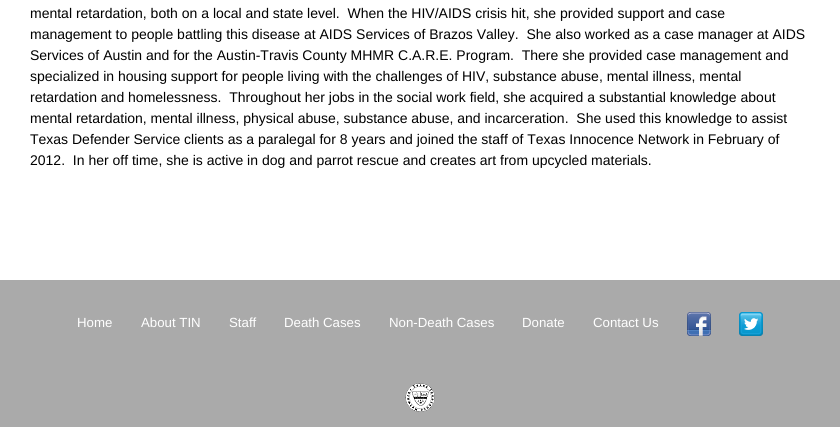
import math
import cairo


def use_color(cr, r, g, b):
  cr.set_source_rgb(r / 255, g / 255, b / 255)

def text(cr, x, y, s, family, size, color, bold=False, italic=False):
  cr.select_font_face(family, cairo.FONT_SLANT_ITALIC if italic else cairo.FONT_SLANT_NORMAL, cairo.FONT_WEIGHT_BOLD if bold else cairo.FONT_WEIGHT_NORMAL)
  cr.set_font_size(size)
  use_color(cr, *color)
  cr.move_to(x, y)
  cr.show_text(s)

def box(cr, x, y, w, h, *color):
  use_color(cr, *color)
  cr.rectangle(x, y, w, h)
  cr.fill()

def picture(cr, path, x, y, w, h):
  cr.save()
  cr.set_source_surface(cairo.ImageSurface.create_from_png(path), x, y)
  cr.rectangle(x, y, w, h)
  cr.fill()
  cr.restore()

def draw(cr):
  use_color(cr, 170, 170, 170)
  cr.paint()
  box(cr, 0, 0, 840, 280, 255, 255, 255)
  picture(cr, "img_01.png", 687, 312, 24, 24)
  picture(cr, "img_02.png", 739, 312, 24, 24)
  picture(cr, "img_03.png", 405, 383, 30, 29)
  text(cr, 30, 18, "mental retardation, both on a local and state level.  When the HIV/AIDS crisis hit, she provided support and case", "Liberation Sans", 14, (0, 0, 0))
  text(cr, 30, 39, "management to people battling this disease at AIDS Services of Brazos Valley.  She also worked as a case manager at AIDS", "Liberation Sans", 14, (0, 0, 0))
  text(cr, 30, 60, "Services of Austin and for the Austin-Travis County MHMR C.A.R.E. Program.  There she provided case management and", "Liberation Sans", 14, (0, 0, 0))
  text(cr, 30, 81, "specialized in housing support for people living with the challenges of HIV, substance abuse, mental illness, mental", "Liberation Sans", 14, (0, 0, 0))
  text(cr, 30, 102, "retardation and homelessness.  Throughout her jobs in the social work field, she acquired a substantial knowledge about", "Liberation Sans", 14, (0, 0, 0))
  text(cr, 30, 123, "mental retardation, mental illness, physical abuse, substance abuse, and incarceration.  She used this knowledge to assist", "Liberation Sans", 14, (0, 0, 0))
  text(cr, 30, 144, "Texas Defender Service clients as a paralegal for 8 years and joined the staff of Texas Innocence Network in February of", "Liberation Sans", 14, (0, 0, 0))
  text(cr, 30, 165, "2012.  In her off time, she is active in dog and parrot rescue and creates art from upcycled materials.", "Liberation Sans", 14, (0, 0, 0))
  text(cr, 77, 327, "Home", "Liberation Sans", 13.25, (255, 255, 255))
  text(cr, 141, 327, "About TIN", "Liberation Sans", 13.25, (255, 255, 255))
  text(cr, 229, 327, "Staff", "Liberation Sans", 13.25, (255, 255, 255))
  text(cr, 284, 327, "Death Cases", "Liberation Sans", 13.25, (255, 255, 255))
  text(cr, 389, 327, "Non-Death Cases", "Liberation Sans", 13.25, (255, 255, 255))
  text(cr, 522, 327, "Donate", "Liberation Sans", 13.25, (255, 255, 255))
  text(cr, 593, 327, "Contact Us", "Liberation Sans", 13.25, (255, 255, 255))


surface = cairo.ImageSurface(cairo.FORMAT_RGB24, 840, 427)
cr = cairo.Context(surface)
options = cairo.FontOptions()
options.set_hint_metrics(cairo.HINT_METRICS_OFF)
options.set_hint_style(cairo.HINT_STYLE_NONE)
cr.set_font_options(options)
cr.set_miter_limit(4)
draw(cr)
surface.write_to_png("out.png")
